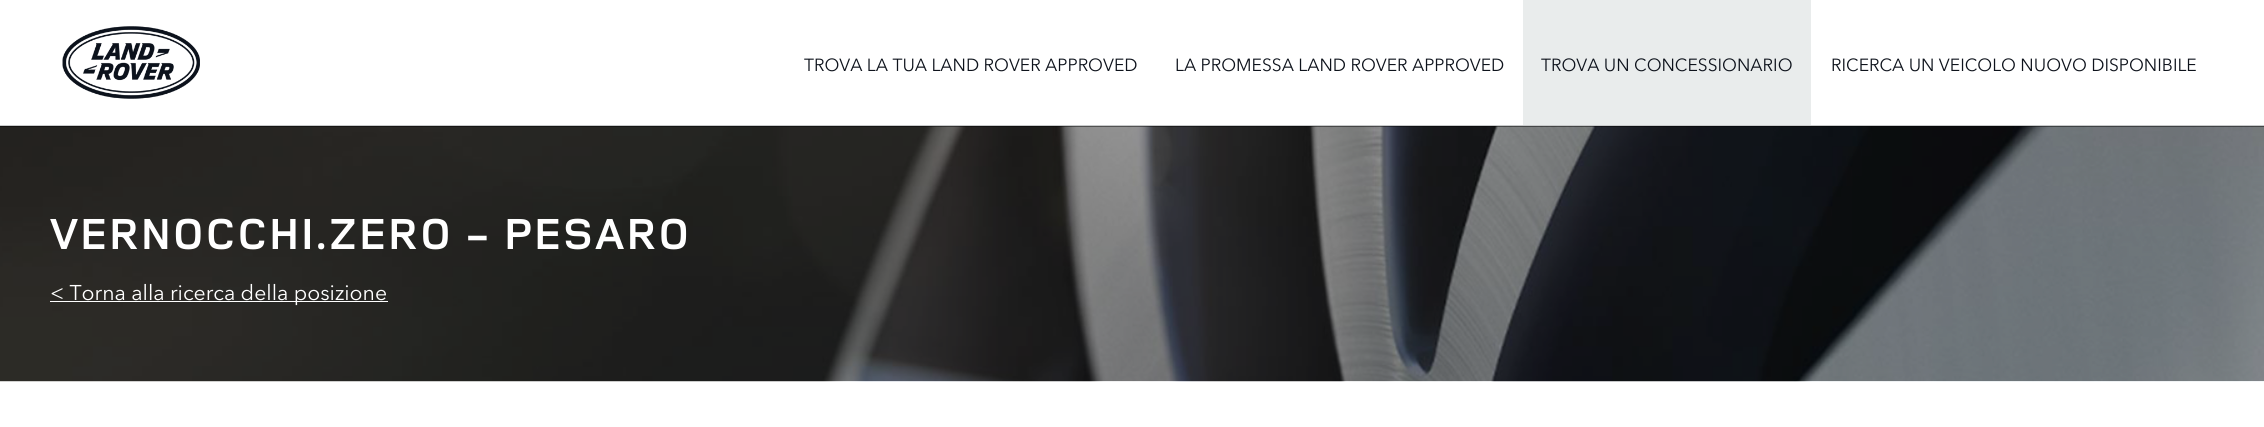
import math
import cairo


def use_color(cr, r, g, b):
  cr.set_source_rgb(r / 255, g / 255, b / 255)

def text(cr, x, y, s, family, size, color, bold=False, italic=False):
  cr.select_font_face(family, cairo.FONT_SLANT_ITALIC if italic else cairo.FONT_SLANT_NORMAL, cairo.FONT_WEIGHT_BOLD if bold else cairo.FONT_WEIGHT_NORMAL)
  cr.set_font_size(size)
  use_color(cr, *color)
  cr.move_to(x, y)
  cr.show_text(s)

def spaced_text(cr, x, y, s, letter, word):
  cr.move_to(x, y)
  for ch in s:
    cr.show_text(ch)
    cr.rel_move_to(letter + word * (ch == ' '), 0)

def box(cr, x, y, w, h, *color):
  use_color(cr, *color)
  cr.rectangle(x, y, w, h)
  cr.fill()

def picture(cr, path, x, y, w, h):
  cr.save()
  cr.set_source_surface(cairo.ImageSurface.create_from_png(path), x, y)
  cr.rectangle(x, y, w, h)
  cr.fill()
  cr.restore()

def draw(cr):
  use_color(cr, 255, 255, 255)
  cr.paint()
  box(cr, 0, 125, 2264, 1, 200, 202, 203)
  picture(cr, "img_01.png", 62, 26, 138, 73)
  box(cr, 1523, 0, 288, 125, 233, 236, 236)
  box(cr, 0, 126, 2264, 1, 0, 0, 0)
  picture(cr, "img_02.png", 0, 126, 2264, 256)
  box(cr, 50, 301, 338, 1, 255, 255, 255)
  text(cr, 804, 71, "TROVA LA TUA LAND ROVER APPROVED", "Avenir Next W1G", 17.5, (14, 19, 28))
  text(cr, 1175, 71, "LA PROMESSA LAND ROVER APPROVED", "Avenir Next W1G", 17.5, (14, 19, 28))
  text(cr, 1541, 71, "TROVA UN CONCESSIONARIO", "Avenir Next W1G", 17.5, (14, 19, 28))
  text(cr, 1831, 71, "RICERCA UN VEICOLO NUOVO DISPONIBILE", "Avenir Next W1G", 17.5, (14, 19, 28))
  cr.select_font_face("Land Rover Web", cairo.FONT_SLANT_NORMAL, cairo.FONT_WEIGHT_BOLD)
  cr.set_font_size(45)
  use_color(cr, 255, 255, 255)
  spaced_text(cr, 50, 249, "VERNOCCHI.ZERO - PESARO", 2.25, 0)
  text(cr, 50, 300, "< Torna alla ricerca della posizione", "Avenir Next W1G", 21.25, (255, 255, 255))


surface = cairo.ImageSurface(cairo.FORMAT_RGB24, 2264, 427)
cr = cairo.Context(surface)
options = cairo.FontOptions()
options.set_hint_metrics(cairo.HINT_METRICS_OFF)
options.set_hint_style(cairo.HINT_STYLE_NONE)
cr.set_font_options(options)
cr.set_miter_limit(4)
draw(cr)
surface.write_to_png("out.png")
